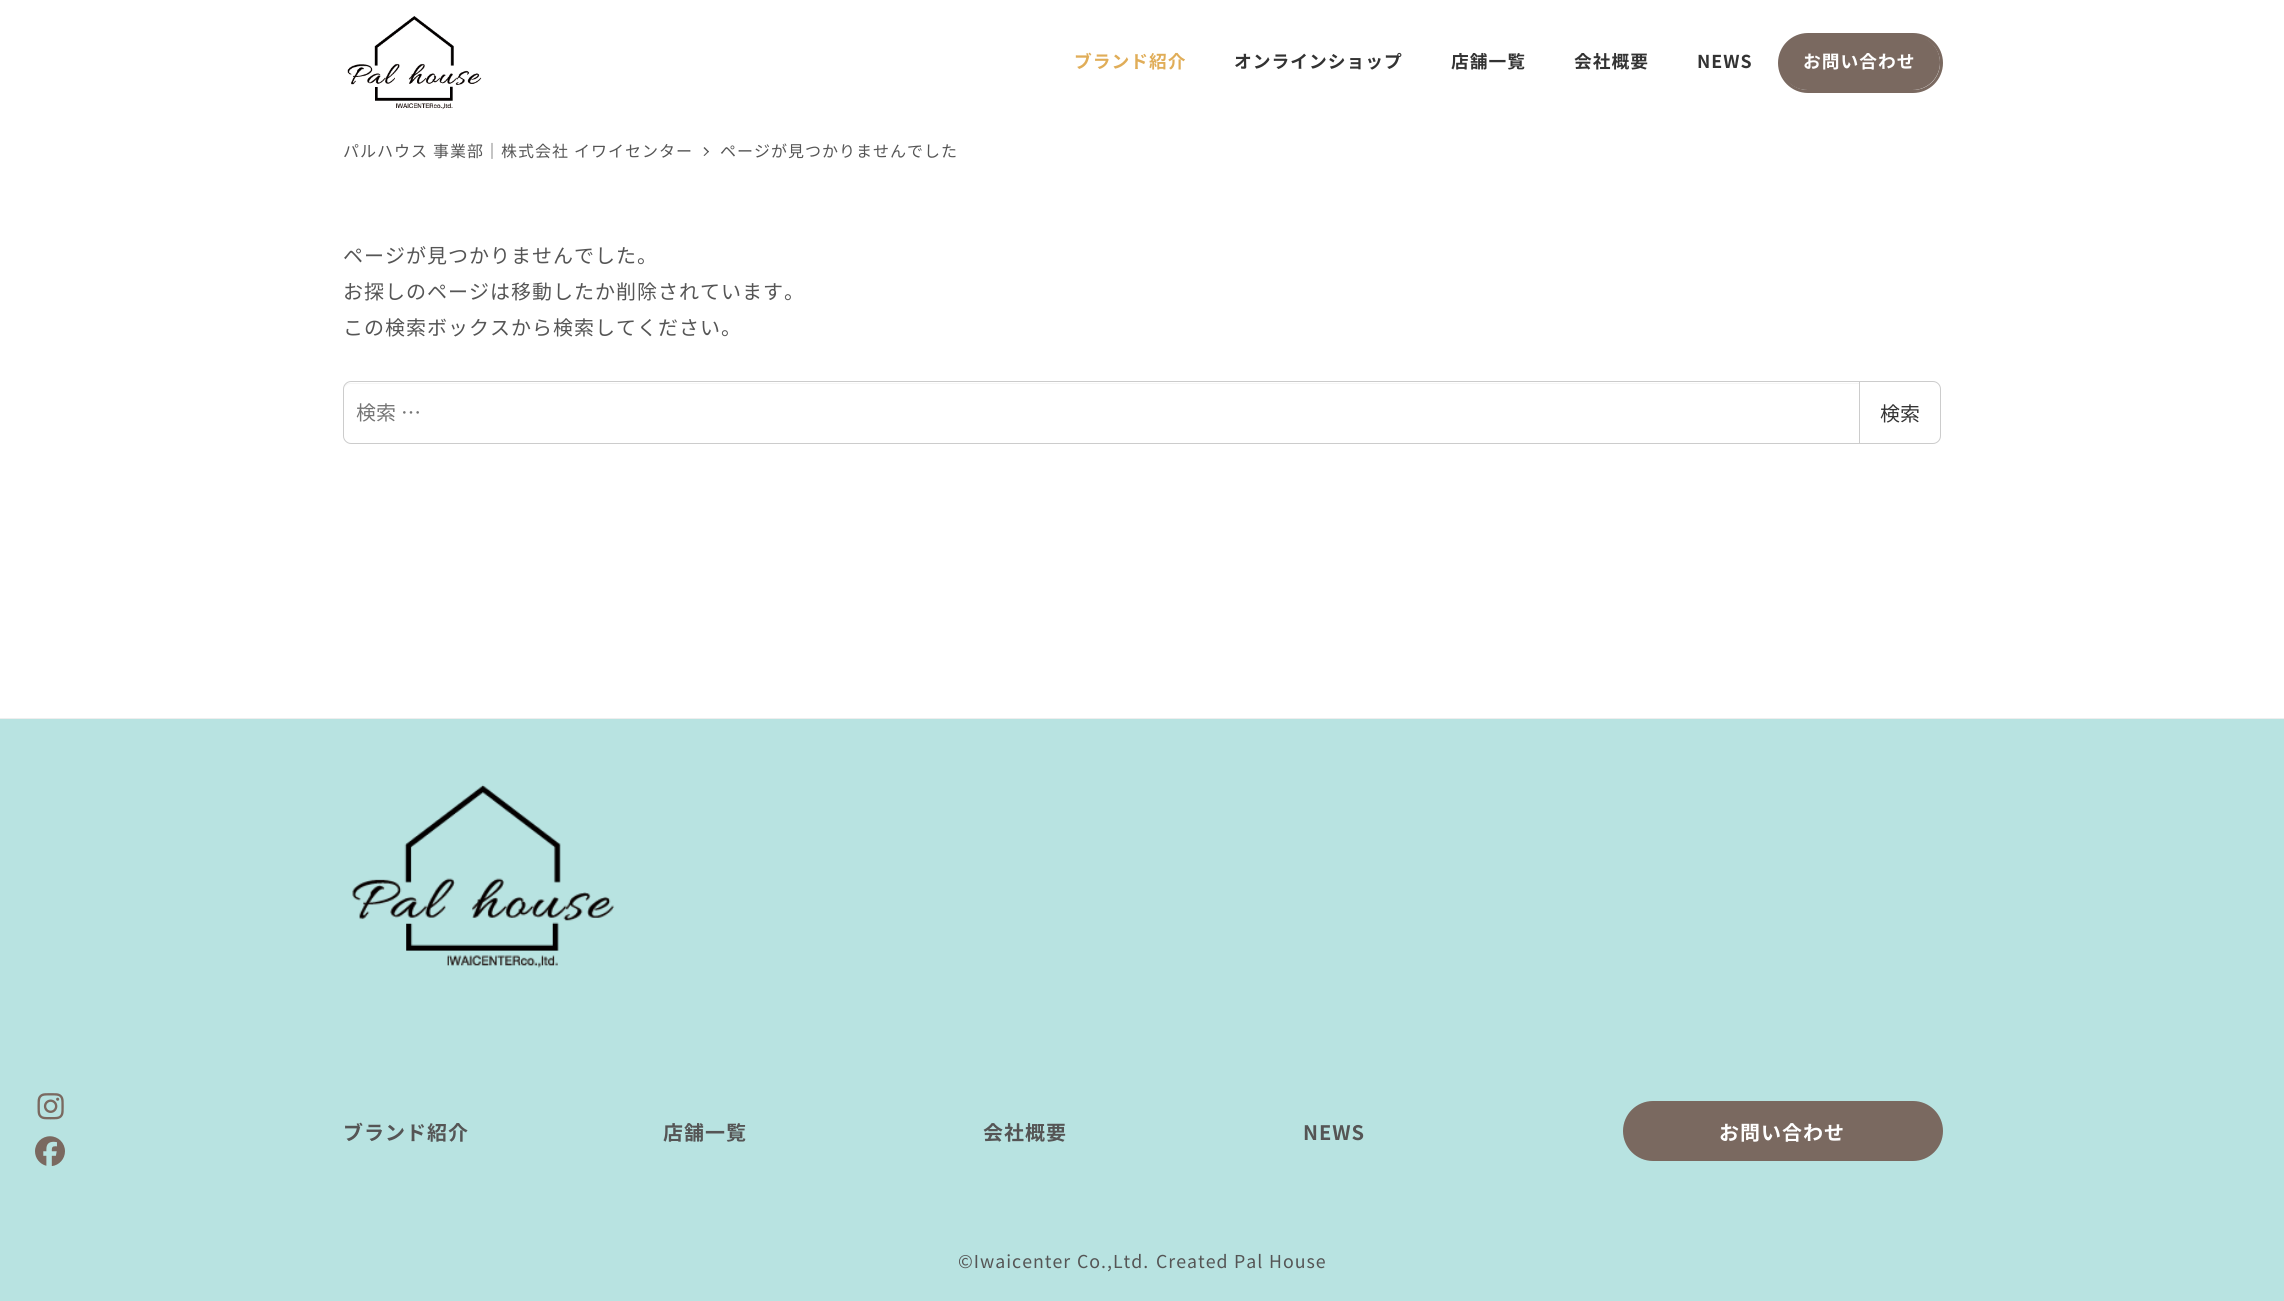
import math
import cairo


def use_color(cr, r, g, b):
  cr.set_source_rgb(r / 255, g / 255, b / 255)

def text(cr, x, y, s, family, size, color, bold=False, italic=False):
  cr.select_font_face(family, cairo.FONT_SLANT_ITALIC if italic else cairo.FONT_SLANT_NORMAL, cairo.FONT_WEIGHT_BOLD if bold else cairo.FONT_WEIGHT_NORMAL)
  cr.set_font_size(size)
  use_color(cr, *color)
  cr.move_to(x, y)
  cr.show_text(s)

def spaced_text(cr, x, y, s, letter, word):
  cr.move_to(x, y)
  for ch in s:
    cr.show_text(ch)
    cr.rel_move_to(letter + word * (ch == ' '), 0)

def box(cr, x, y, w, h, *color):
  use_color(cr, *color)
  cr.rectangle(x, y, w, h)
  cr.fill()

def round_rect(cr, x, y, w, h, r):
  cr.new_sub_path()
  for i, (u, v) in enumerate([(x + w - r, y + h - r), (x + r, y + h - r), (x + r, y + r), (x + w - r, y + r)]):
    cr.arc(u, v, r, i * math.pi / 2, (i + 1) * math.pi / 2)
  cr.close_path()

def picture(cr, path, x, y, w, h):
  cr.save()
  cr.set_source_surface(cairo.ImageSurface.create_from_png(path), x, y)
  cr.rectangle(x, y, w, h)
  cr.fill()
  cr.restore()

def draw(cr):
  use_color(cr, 255, 255, 255)
  cr.paint()
  picture(cr, "img_01.png", 347, 16, 135, 94)
  round_rect(cr, 1779.5, 34.5, 162, 57, 28.5)
  use_color(cr, 122, 105, 96)
  cr.set_line_width(3)
  cr.stroke()
  cr.save()
  round_rect(cr, 1780, 35, 160, 55, 27.5)
  cr.clip()
  cr.new_path()
  cr.move_to(1807.5, 35)
  cr.line_to(1912.5, 35)
  cr.curve_to(1927.5, 35, 1940, 47.5, 1940, 62.5)
  cr.line_to(1940, 63)
  cr.line_to(1780, 63)
  cr.line_to(1780, 62.5)
  cr.curve_to(1780, 47.5, 1792.5, 35, 1807.5, 35)
  cr.close_path()
  cr.fill()
  box(cr, 1780, 63, 160, 27, 122, 105, 96)
  cr.restore()
  box(cr, 0, 719, 2284, 582, 184, 227, 225)
  picture(cr, "img_02.png", 37, 1093, 27, 27)
  picture(cr, "img_03.png", 35, 1136, 30, 30)
  use_color(cr, 85, 85, 85)
  cr.new_path()
  cr.move_to(704.5, 147)
  cr.line_to(709, 151.5)
  cr.line_to(708, 152.5)
  cr.line_to(703.5, 148)
  cr.close_path()
  cr.fill()
  cr.new_path()
  cr.move_to(708, 151)
  cr.line_to(709, 151.5)
  cr.line_to(704.5, 156)
  cr.line_to(703.5, 155.5)
  cr.close_path()
  cr.fill()
  cr.new_path()
  cr.move_to(1859.5, 381.5)
  cr.line_to(1933, 381.5)
  cr.curve_to(1937, 381.5, 1940.5, 385, 1940.5, 389)
  cr.line_to(1940.5, 436)
  cr.curve_to(1940.5, 440, 1937, 443.5, 1933, 443.5)
  cr.line_to(1859.5, 443.5)
  cr.close_path()
  use_color(cr, 204, 204, 204)
  cr.set_line_width(1)
  cr.stroke()
  use_color(cr, 255, 255, 255)
  cr.new_path()
  cr.move_to(351, 381)
  cr.line_to(1860, 381)
  cr.line_to(1860, 444)
  cr.line_to(351, 444)
  cr.curve_to(346.5, 444, 343, 440.5, 343, 436)
  cr.line_to(343, 389)
  cr.curve_to(343, 384.5, 346.5, 381, 351, 381)
  cr.close_path()
  cr.fill()
  use_color(cr, 246, 246, 246)
  cr.new_path()
  cr.move_to(350, 384)
  cr.line_to(1859, 384)
  cr.line_to(1859, 383)
  cr.line_to(350, 383)
  cr.curve_to(346, 383, 344, 386, 344, 390)
  cr.curve_to(344, 387, 347, 384, 350, 384)
  cr.close_path()
  cr.fill()
  cr.new_path()
  cr.move_to(351, 381.5)
  cr.line_to(1859.5, 381.5)
  cr.line_to(1859.5, 443.5)
  cr.line_to(351, 443.5)
  cr.curve_to(347, 443.5, 343.5, 440, 343.5, 436)
  cr.line_to(343.5, 389)
  cr.curve_to(343.5, 385, 347, 381.5, 351, 381.5)
  cr.close_path()
  use_color(cr, 204, 204, 204)
  cr.stroke()
  box(cr, 0, 718, 2284, 1, 238, 238, 238)
  picture(cr, "img_04.png", 352, 784, 263, 184)
  use_color(cr, 122, 105, 96)
  round_rect(cr, 1624.5, 1102.5, 317, 57, 28.5)
  cr.fill_preserve()
  cr.set_line_width(3)
  cr.stroke()
  cr.select_font_face("Noto Sans JP", cairo.FONT_SLANT_NORMAL, cairo.FONT_WEIGHT_BOLD)
  cr.set_font_size(17.75)
  use_color(cr, 224, 173, 88)
  spaced_text(cr, 1074, 68, "ブランド紹介", 1, 0)
  use_color(cr, 51, 51, 51)
  spaced_text(cr, 1234, 68, "オンラインショップ", 1, 0)
  spaced_text(cr, 1451, 68, "店舗一覧", 1, 0)
  spaced_text(cr, 1574, 68, "会社概要", 1, 0)
  spaced_text(cr, 1697, 68, "NEWS", 1, 0)
  use_color(cr, 255, 255, 255)
  spaced_text(cr, 1803, 68, "お問い合わせ", 1, 0)
  cr.select_font_face("Noto Sans JP")
  cr.set_font_size(16)
  use_color(cr, 85, 85, 85)
  spaced_text(cr, 343, 157, "パルハウス", 1, 0)
  spaced_text(cr, 433, 157, "事業部｜株式会社", 1, 0)
  spaced_text(cr, 574, 157, "イワイセンター", 1, 0)
  spaced_text(cr, 720, 157, "ページが見つかりませんでした", 1, 0)
  cr.set_font_size(20)
  spaced_text(cr, 343, 263, "ページが見つかりませんでした。", 1, 0)
  spaced_text(cr, 343, 299, "お探しのページは移動したか削除されています。", 1, 0)
  spaced_text(cr, 343, 335, "この検索ボックスから検索してください。", 1, 0)
  text(cr, 356, 420, "検索", "Noto Sans JP", 20, (117, 117, 117))
  text(cr, 401, 420, "…", "Noto Sans JP", 20, (117, 117, 117))
  text(cr, 1880, 421, "検索", "Noto Sans JP", 20, (51, 51, 51))
  cr.select_font_face("Noto Sans JP", cairo.FONT_SLANT_NORMAL, cairo.FONT_WEIGHT_BOLD)
  use_color(cr, 85, 85, 85)
  spaced_text(cr, 343, 1140, "ブランド紹介", 1, 0)
  spaced_text(cr, 663, 1140, "店舗一覧", 1, 0)
  spaced_text(cr, 983, 1140, "会社概要", 1, 0)
  spaced_text(cr, 1303, 1140, "NEWS", 1, 0)
  use_color(cr, 255, 255, 255)
  spaced_text(cr, 1719, 1140, "お問い合わせ", 1, 0)
  cr.select_font_face("Noto Sans JP")
  cr.set_font_size(17.75)
  use_color(cr, 85, 85, 85)
  spaced_text(cr, 958, 1268, "©Iwaicenter", 1, 0)
  spaced_text(cr, 1077, 1268, "Co.,Ltd.", 1, 0)
  spaced_text(cr, 1156, 1268, "Created", 1, 0)
  spaced_text(cr, 1234, 1268, "Pal", 1, 0)
  spaced_text(cr, 1269, 1268, "House", 1, 0)


surface = cairo.ImageSurface(cairo.FORMAT_RGB24, 2284, 1301)
cr = cairo.Context(surface)
options = cairo.FontOptions()
options.set_hint_metrics(cairo.HINT_METRICS_OFF)
options.set_hint_style(cairo.HINT_STYLE_NONE)
cr.set_font_options(options)
cr.set_miter_limit(4)
draw(cr)
surface.write_to_png("out.png")
